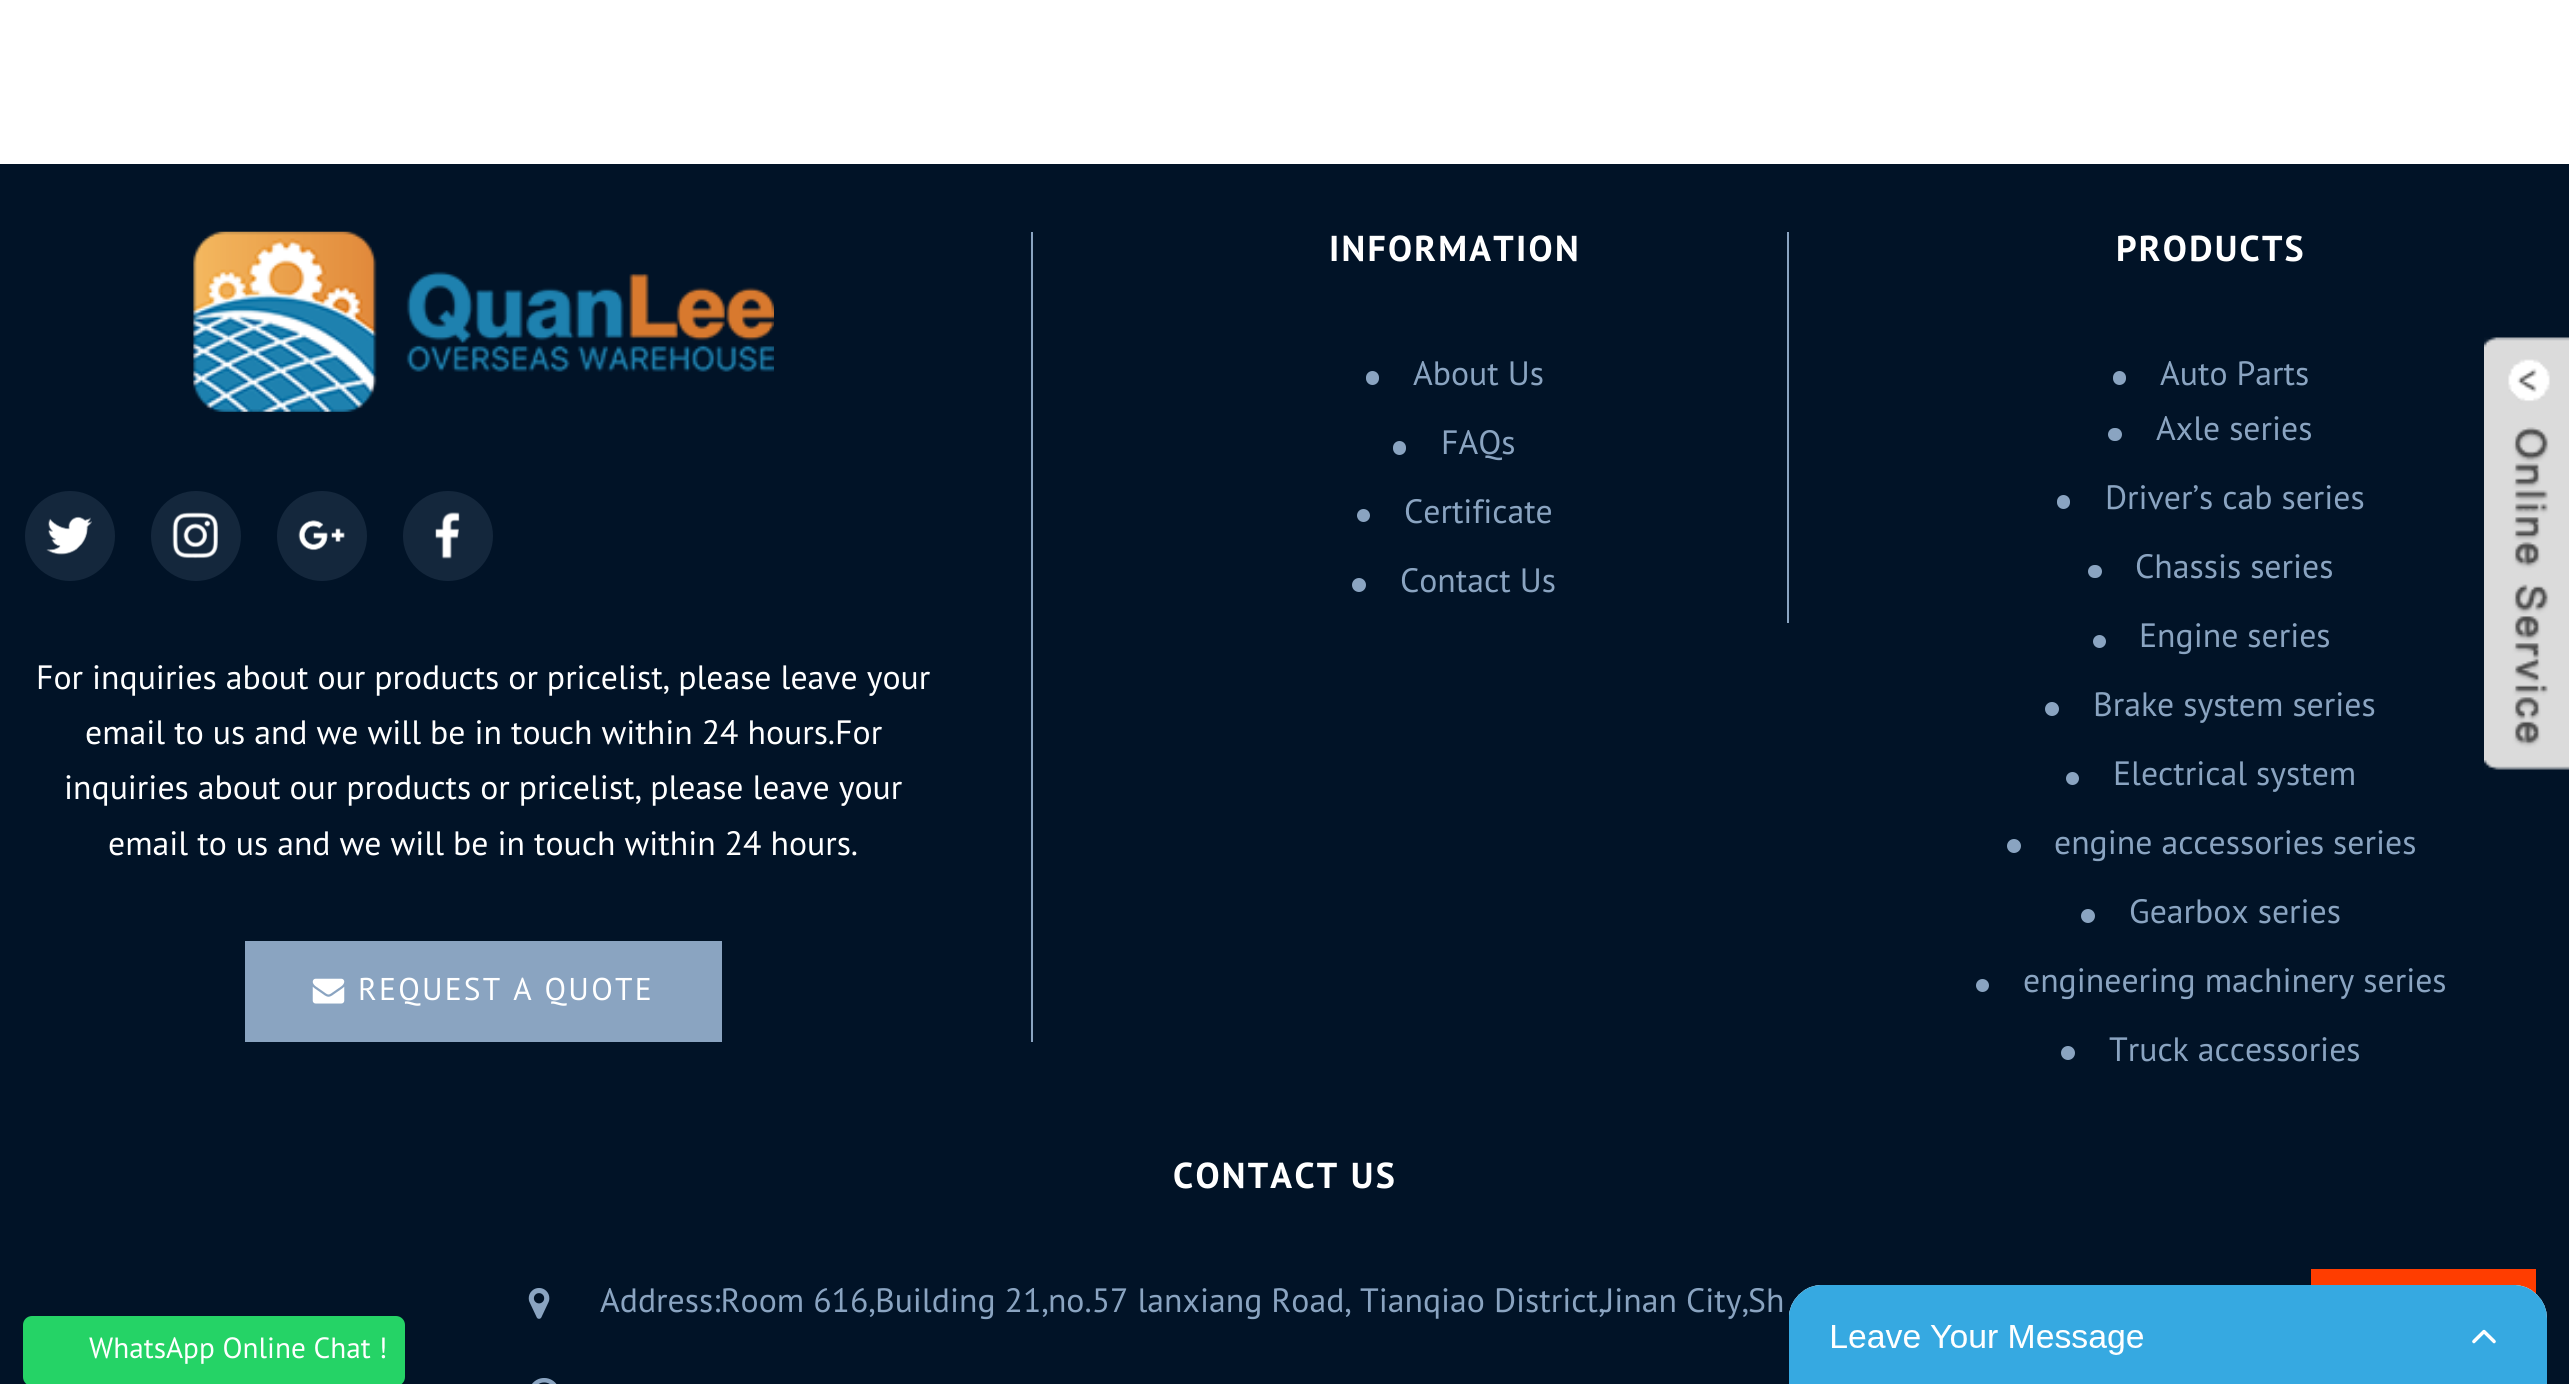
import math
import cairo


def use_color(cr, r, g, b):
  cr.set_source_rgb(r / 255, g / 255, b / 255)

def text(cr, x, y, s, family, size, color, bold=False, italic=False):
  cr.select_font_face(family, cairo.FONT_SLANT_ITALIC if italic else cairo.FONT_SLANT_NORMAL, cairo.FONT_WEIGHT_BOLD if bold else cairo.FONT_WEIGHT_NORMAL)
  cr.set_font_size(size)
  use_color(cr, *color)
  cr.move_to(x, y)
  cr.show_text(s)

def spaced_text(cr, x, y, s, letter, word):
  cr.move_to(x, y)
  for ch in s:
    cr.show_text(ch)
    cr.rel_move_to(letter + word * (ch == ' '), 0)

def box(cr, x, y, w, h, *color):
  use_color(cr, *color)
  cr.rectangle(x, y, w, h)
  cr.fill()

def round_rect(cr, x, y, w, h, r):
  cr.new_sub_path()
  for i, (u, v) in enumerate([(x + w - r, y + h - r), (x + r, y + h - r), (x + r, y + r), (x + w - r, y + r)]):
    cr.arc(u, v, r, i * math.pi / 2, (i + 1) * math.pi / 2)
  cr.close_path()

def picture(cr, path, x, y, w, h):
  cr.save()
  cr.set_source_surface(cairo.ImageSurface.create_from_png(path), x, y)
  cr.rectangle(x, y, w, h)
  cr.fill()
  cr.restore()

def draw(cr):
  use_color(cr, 255, 255, 255)
  cr.paint()
  box(cr, 0, 164, 2569, 1220, 1, 19, 39)
  box(cr, 1031, 232, 2, 810, 138, 164, 193)
  picture(cr, "img_01.png", 193, 231, 581, 181)
  use_color(cr, 20, 39, 60)
  cr.arc(70, 536, 45, 0, 2 * math.pi)
  cr.fill()
  picture(cr, "img_02.png", 46, 516, 46, 39)
  cr.arc(196, 536, 45, 0, 2 * math.pi)
  cr.fill()
  picture(cr, "img_03.png", 172, 512, 46, 47)
  cr.arc(322, 536, 45, 0, 2 * math.pi)
  cr.fill()
  picture(cr, "img_04.png", 298, 520, 47, 31)
  cr.arc(448, 536, 45, 0, 2 * math.pi)
  cr.fill()
  picture(cr, "img_05.png", 435, 512, 25, 47)
  box(cr, 245, 941, 477, 101, 138, 164, 193)
  picture(cr, "img_06.png", 312, 978, 33, 26)
  box(cr, 1787, 232, 2, 391, 138, 164, 193)
  round_rect(cr, 1366, 371, 13, 14, 6.5)
  cr.fill()
  round_rect(cr, 1393, 441, 13, 14, 6.5)
  cr.fill()
  cr.arc(1363.5, 515.5, 6.5, 0, 2 * math.pi)
  cr.fill()
  cr.arc(1359, 585, 7, 0, 2 * math.pi)
  cr.fill()
  round_rect(cr, 2113, 371, 13, 14, 6.5)
  cr.fill()
  round_rect(cr, 2108, 428, 14, 13, 6.5)
  cr.fill()
  round_rect(cr, 2057, 495, 13, 14, 6.5)
  cr.fill()
  round_rect(cr, 2088, 565, 14, 13, 6.5)
  cr.fill()
  cr.arc(2099.5, 641.5, 6.5, 0, 2 * math.pi)
  cr.fill()
  cr.arc(2052, 709, 7, 0, 2 * math.pi)
  cr.fill()
  cr.arc(2072.5, 778.5, 6.5, 0, 2 * math.pi)
  cr.fill()
  cr.arc(2014, 846, 7, 0, 2 * math.pi)
  cr.fill()
  cr.arc(2088, 916, 7, 0, 2 * math.pi)
  cr.fill()
  cr.arc(1982.5, 985.5, 6.5, 0, 2 * math.pi)
  cr.fill()
  cr.arc(2068, 1053, 7, 0, 2 * math.pi)
  cr.fill()
  picture(cr, "img_07.png", 528, 1288, 22, 31)
  picture(cr, "img_08.png", 532, 1378, 25, 6)
  picture(cr, "img_09.png", 2484, 337, 85, 433)
  box(cr, 2311, 1269, 225, 25, 255, 61, 0)
  use_color(cr, 37, 211, 102)
  round_rect(cr, 23, 1316, 382, 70, 9)
  cr.fill()
  picture(cr, "img_10.png", 1789, 1285, 758, 99)
  text(cr, 36, 689, "For inquiries about our products or pricelist, please leave your", "PT Sans", 33.75, (255, 255, 255))
  text(cr, 85, 744, "email to us and we will be in touch within 24 hours.For", "PT Sans", 33.75, (255, 255, 255))
  text(cr, 64, 799, "inquiries about our products or pricelist, please leave your", "PT Sans", 33.75, (255, 255, 255))
  text(cr, 108, 855, "email to us and we will be in touch within 24 hours.", "PT Sans", 33.75, (255, 255, 255))
  cr.set_font_size(31.5)
  spaced_text(cr, 358, 1000, "REQUEST A QUOTE", 2.25, 0)
  cr.select_font_face("PT Sans", cairo.FONT_SLANT_NORMAL, cairo.FONT_WEIGHT_BOLD)
  cr.set_font_size(36)
  spaced_text(cr, 1329, 261, "INFORMATION", 2.25, 0)
  text(cr, 1413, 385, "About Us", "PT Sans", 33.75, (138, 164, 193))
  text(cr, 1441, 454, "FAQs", "PT Sans", 33.75, (138, 164, 193))
  text(cr, 1404, 523, "Certificate", "PT Sans", 33.75, (138, 164, 193))
  text(cr, 1400, 592, "Contact Us", "PT Sans", 33.75, (138, 164, 193))
  cr.select_font_face("PT Sans", cairo.FONT_SLANT_NORMAL, cairo.FONT_WEIGHT_BOLD)
  cr.set_font_size(36)
  use_color(cr, 255, 255, 255)
  spaced_text(cr, 2116, 261, "PRODUCTS", 2.25, 0)
  text(cr, 2160, 385, "Auto Parts", "PT Sans", 33.75, (138, 164, 193))
  text(cr, 2156, 440, "Axle series", "PT Sans", 33.75, (138, 164, 193))
  text(cr, 2105, 509, "Driver’s cab series", "PT Sans", 33.75, (138, 164, 193))
  text(cr, 2135, 578, "Chassis series", "PT Sans", 33.75, (138, 164, 193))
  text(cr, 2139, 647, "Engine series", "PT Sans", 33.75, (138, 164, 193))
  text(cr, 2093, 716, "Brake system series", "PT Sans", 33.75, (138, 164, 193))
  text(cr, 2113, 785, "Electrical system", "PT Sans", 33.75, (138, 164, 193))
  text(cr, 2054, 854, "engine accessories series", "PT Sans", 33.75, (138, 164, 193))
  text(cr, 2129, 923, "Gearbox series", "PT Sans", 33.75, (138, 164, 193))
  text(cr, 2023, 992, "engineering machinery series", "PT Sans", 33.75, (138, 164, 193))
  text(cr, 2109, 1061, "Truck accessories", "PT Sans", 33.75, (138, 164, 193))
  cr.select_font_face("PT Sans", cairo.FONT_SLANT_NORMAL, cairo.FONT_WEIGHT_BOLD)
  cr.set_font_size(36)
  use_color(cr, 255, 255, 255)
  spaced_text(cr, 1173, 1188, "CONTACT US", 2.25, 0)
  text(cr, 600, 1312, "Address:Room 616,Building 21,no.57 lanxiang Road, Tianqiao District,Jinan City,Sh", "PT Sans", 33.75, (138, 164, 193))
  text(cr, 89, 1358, "WhatsApp Online Chat !", "PT Sans", 29.25, (255, 255, 255))


surface = cairo.ImageSurface(cairo.FORMAT_RGB24, 2569, 1384)
cr = cairo.Context(surface)
options = cairo.FontOptions()
options.set_hint_metrics(cairo.HINT_METRICS_OFF)
options.set_hint_style(cairo.HINT_STYLE_NONE)
cr.set_font_options(options)
cr.set_miter_limit(4)
draw(cr)
surface.write_to_png("out.png")
